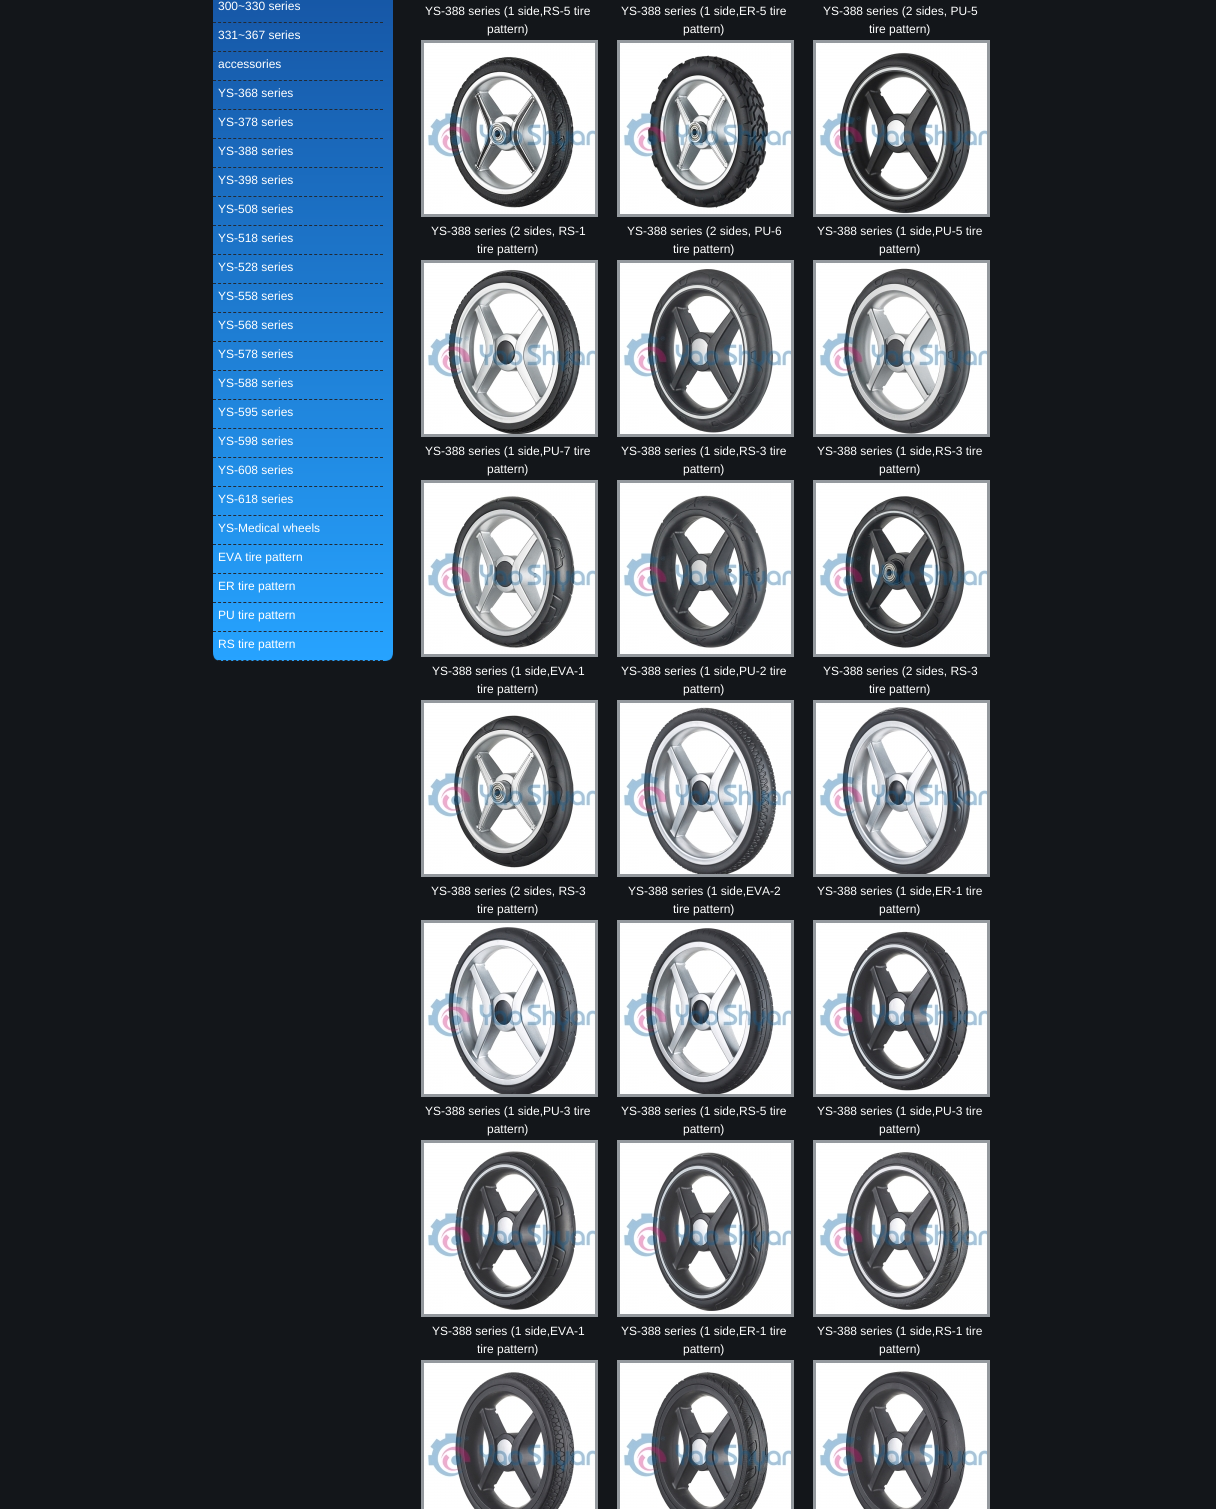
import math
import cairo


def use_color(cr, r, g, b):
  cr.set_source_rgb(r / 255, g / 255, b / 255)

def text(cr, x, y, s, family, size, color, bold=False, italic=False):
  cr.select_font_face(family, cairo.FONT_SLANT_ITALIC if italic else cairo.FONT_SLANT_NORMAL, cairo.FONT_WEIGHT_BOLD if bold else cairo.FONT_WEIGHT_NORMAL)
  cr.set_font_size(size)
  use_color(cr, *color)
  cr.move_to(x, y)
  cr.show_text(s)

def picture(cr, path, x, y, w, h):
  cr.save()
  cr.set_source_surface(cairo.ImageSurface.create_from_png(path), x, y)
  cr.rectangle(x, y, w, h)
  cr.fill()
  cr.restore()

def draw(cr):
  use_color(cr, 19, 22, 26)
  cr.paint()
  gradient = cairo.LinearGradient(303, -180, 303, 661)
  gradient.add_color_stop_rgba(0, 0.071, 0.263, 0.561, 1)
  gradient.add_color_stop_rgba(1, 0.149, 0.639, 1, 1)
  cr.set_source(gradient)
  cr.rectangle(213, 0, 180, 661)
  cr.fill()
  cr.new_path()
  cr.move_to(213, 22.5)
  cr.line_to(383, 22.5)
  use_color(cr, 34, 43, 54)
  cr.set_line_width(1)
  cr.set_dash([3, 2.06])
  cr.stroke()
  cr.new_path()
  cr.move_to(213, 51.5)
  cr.line_to(383, 51.5)
  cr.stroke()
  cr.new_path()
  cr.move_to(213, 80.5)
  cr.line_to(383, 80.5)
  cr.stroke()
  cr.new_path()
  cr.move_to(213, 109.5)
  cr.line_to(383, 109.5)
  cr.stroke()
  cr.new_path()
  cr.move_to(213, 138.5)
  cr.line_to(383, 138.5)
  cr.stroke()
  cr.new_path()
  cr.move_to(213, 167.5)
  cr.line_to(383, 167.5)
  cr.stroke()
  cr.new_path()
  cr.move_to(213, 196.5)
  cr.line_to(383, 196.5)
  cr.stroke()
  cr.new_path()
  cr.move_to(213, 225.5)
  cr.line_to(383, 225.5)
  cr.stroke()
  cr.new_path()
  cr.move_to(213, 254.5)
  cr.line_to(383, 254.5)
  cr.stroke()
  cr.new_path()
  cr.move_to(213, 283.5)
  cr.line_to(383, 283.5)
  cr.stroke()
  cr.new_path()
  cr.move_to(213, 312.5)
  cr.line_to(383, 312.5)
  cr.stroke()
  cr.new_path()
  cr.move_to(213, 341.5)
  cr.line_to(383, 341.5)
  cr.stroke()
  cr.new_path()
  cr.move_to(213, 370.5)
  cr.line_to(383, 370.5)
  cr.stroke()
  cr.new_path()
  cr.move_to(213, 399.5)
  cr.line_to(383, 399.5)
  cr.stroke()
  cr.new_path()
  cr.move_to(213, 428.5)
  cr.line_to(383, 428.5)
  cr.stroke()
  cr.new_path()
  cr.move_to(213, 457.5)
  cr.line_to(383, 457.5)
  cr.stroke()
  cr.new_path()
  cr.move_to(213, 486.5)
  cr.line_to(383, 486.5)
  cr.stroke()
  cr.new_path()
  cr.move_to(213, 515.5)
  cr.line_to(383, 515.5)
  cr.stroke()
  cr.new_path()
  cr.move_to(213, 544.5)
  cr.line_to(383, 544.5)
  cr.stroke()
  cr.new_path()
  cr.move_to(213, 573.5)
  cr.line_to(383, 573.5)
  cr.stroke()
  cr.new_path()
  cr.move_to(213, 602.5)
  cr.line_to(383, 602.5)
  cr.stroke()
  cr.new_path()
  cr.move_to(213, 631.5)
  cr.line_to(383, 631.5)
  cr.stroke()
  cr.new_path()
  cr.move_to(213, 660.5)
  cr.line_to(383, 660.5)
  cr.stroke()
  picture(cr, "img_01.png", 213, 652, 180, 9)
  cr.rectangle(422.5, 41.5, 174, 174)
  use_color(cr, 148, 153, 158)
  cr.set_line_width(3)
  cr.set_dash([])
  cr.stroke()
  picture(cr, "img_02.png", 424, 43, 171, 171)
  cr.rectangle(618.5, 41.5, 174, 174)
  cr.stroke()
  picture(cr, "img_03.png", 620, 43, 171, 171)
  cr.rectangle(814.5, 41.5, 174, 174)
  cr.stroke()
  picture(cr, "img_04.png", 816, 43, 171, 171)
  cr.rectangle(422.5, 261.5, 174, 174)
  cr.stroke()
  picture(cr, "img_05.png", 424, 263, 171, 171)
  cr.rectangle(618.5, 261.5, 174, 174)
  cr.stroke()
  picture(cr, "img_06.png", 620, 263, 171, 171)
  cr.rectangle(814.5, 261.5, 174, 174)
  cr.stroke()
  picture(cr, "img_07.png", 816, 263, 171, 171)
  cr.rectangle(422.5, 481.5, 174, 174)
  cr.stroke()
  picture(cr, "img_08.png", 424, 483, 171, 171)
  cr.rectangle(618.5, 481.5, 174, 174)
  cr.stroke()
  picture(cr, "img_09.png", 620, 483, 171, 171)
  cr.rectangle(814.5, 481.5, 174, 174)
  cr.stroke()
  picture(cr, "img_10.png", 816, 483, 171, 171)
  cr.rectangle(422.5, 701.5, 174, 174)
  cr.stroke()
  picture(cr, "img_11.png", 424, 703, 171, 171)
  cr.rectangle(618.5, 701.5, 174, 174)
  cr.stroke()
  picture(cr, "img_12.png", 620, 703, 171, 171)
  cr.rectangle(814.5, 701.5, 174, 174)
  cr.stroke()
  picture(cr, "img_13.png", 816, 703, 171, 171)
  cr.rectangle(422.5, 921.5, 174, 174)
  cr.stroke()
  picture(cr, "img_14.png", 424, 923, 171, 171)
  cr.rectangle(618.5, 921.5, 174, 174)
  cr.stroke()
  picture(cr, "img_15.png", 620, 923, 171, 171)
  cr.rectangle(814.5, 921.5, 174, 174)
  cr.stroke()
  picture(cr, "img_16.png", 816, 923, 171, 171)
  cr.rectangle(422.5, 1141.5, 174, 174)
  cr.stroke()
  picture(cr, "img_17.png", 424, 1143, 171, 171)
  cr.rectangle(618.5, 1141.5, 174, 174)
  cr.stroke()
  picture(cr, "img_18.png", 620, 1143, 171, 171)
  cr.rectangle(814.5, 1141.5, 174, 174)
  cr.stroke()
  picture(cr, "img_19.png", 816, 1143, 171, 171)
  cr.rectangle(422.5, 1361.5, 174, 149)
  cr.stroke()
  picture(cr, "img_20.png", 424, 1363, 171, 146)
  cr.rectangle(618.5, 1361.5, 174, 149)
  cr.stroke()
  picture(cr, "img_21.png", 620, 1363, 171, 146)
  cr.rectangle(814.5, 1361.5, 174, 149)
  cr.stroke()
  picture(cr, "img_22.png", 816, 1363, 171, 146)
  text(cr, 218, 10, "300~330 series", "Liberation Sans", 12, (255, 255, 255))
  text(cr, 218, 39, "331~367 series", "Liberation Sans", 12, (255, 255, 255))
  text(cr, 218, 68, "accessories", "Liberation Sans", 12, (255, 255, 255))
  text(cr, 218, 97, "YS-368 series", "Liberation Sans", 12, (255, 255, 255))
  text(cr, 218, 126, "YS-378 series", "Liberation Sans", 12, (255, 255, 255))
  text(cr, 218, 155, "YS-388 series", "Liberation Sans", 12, (255, 255, 255))
  text(cr, 218, 184, "YS-398 series", "Liberation Sans", 12, (255, 255, 255))
  text(cr, 218, 213, "YS-508 series", "Liberation Sans", 12, (255, 255, 255))
  text(cr, 218, 242, "YS-518 series", "Liberation Sans", 12, (255, 255, 255))
  text(cr, 218, 271, "YS-528 series", "Liberation Sans", 12, (255, 255, 255))
  text(cr, 218, 300, "YS-558 series", "Liberation Sans", 12, (255, 255, 255))
  text(cr, 218, 329, "YS-568 series", "Liberation Sans", 12, (255, 255, 255))
  text(cr, 218, 358, "YS-578 series", "Liberation Sans", 12, (255, 255, 255))
  text(cr, 218, 387, "YS-588 series", "Liberation Sans", 12, (255, 255, 255))
  text(cr, 218, 416, "YS-595 series", "Liberation Sans", 12, (255, 255, 255))
  text(cr, 218, 445, "YS-598 series", "Liberation Sans", 12, (255, 255, 255))
  text(cr, 218, 474, "YS-608 series", "Liberation Sans", 12, (255, 255, 255))
  text(cr, 218, 503, "YS-618 series", "Liberation Sans", 12, (255, 255, 255))
  text(cr, 218, 532, "YS-Medical wheels", "Liberation Sans", 12, (255, 255, 255))
  text(cr, 218, 561, "EVA tire pattern", "Liberation Sans", 12, (255, 255, 255))
  text(cr, 218, 590, "ER tire pattern", "Liberation Sans", 12, (255, 255, 255))
  text(cr, 218, 619, "PU tire pattern", "Liberation Sans", 12, (255, 255, 255))
  text(cr, 218, 648, "RS tire pattern", "Liberation Sans", 12, (255, 255, 255))
  text(cr, 425, 15, "YS-388 series (1 side,RS-5 tire", "Liberation Sans", 12, (255, 255, 255))
  text(cr, 487, 33, "pattern)", "Liberation Sans", 12, (255, 255, 255))
  text(cr, 621, 15, "YS-388 series (1 side,ER-5 tire", "Liberation Sans", 12, (255, 255, 255))
  text(cr, 683, 33, "pattern)", "Liberation Sans", 12, (255, 255, 255))
  text(cr, 823, 15, "YS-388 series (2 sides, PU-5", "Liberation Sans", 12, (255, 255, 255))
  text(cr, 869, 33, "tire pattern)", "Liberation Sans", 12, (255, 255, 255))
  text(cr, 431, 235, "YS-388 series (2 sides, RS-1", "Liberation Sans", 12, (255, 255, 255))
  text(cr, 477, 253, "tire pattern)", "Liberation Sans", 12, (255, 255, 255))
  text(cr, 627, 235, "YS-388 series (2 sides, PU-6", "Liberation Sans", 12, (255, 255, 255))
  text(cr, 673, 253, "tire pattern)", "Liberation Sans", 12, (255, 255, 255))
  text(cr, 817, 235, "YS-388 series (1 side,PU-5 tire", "Liberation Sans", 12, (255, 255, 255))
  text(cr, 879, 253, "pattern)", "Liberation Sans", 12, (255, 255, 255))
  text(cr, 425, 455, "YS-388 series (1 side,PU-7 tire", "Liberation Sans", 12, (255, 255, 255))
  text(cr, 487, 473, "pattern)", "Liberation Sans", 12, (255, 255, 255))
  text(cr, 621, 455, "YS-388 series (1 side,RS-3 tire", "Liberation Sans", 12, (255, 255, 255))
  text(cr, 683, 473, "pattern)", "Liberation Sans", 12, (255, 255, 255))
  text(cr, 817, 455, "YS-388 series (1 side,RS-3 tire", "Liberation Sans", 12, (255, 255, 255))
  text(cr, 879, 473, "pattern)", "Liberation Sans", 12, (255, 255, 255))
  text(cr, 432, 675, "YS-388 series (1 side,EVA-1", "Liberation Sans", 12, (255, 255, 255))
  text(cr, 477, 693, "tire pattern)", "Liberation Sans", 12, (255, 255, 255))
  text(cr, 621, 675, "YS-388 series (1 side,PU-2 tire", "Liberation Sans", 12, (255, 255, 255))
  text(cr, 683, 693, "pattern)", "Liberation Sans", 12, (255, 255, 255))
  text(cr, 823, 675, "YS-388 series (2 sides, RS-3", "Liberation Sans", 12, (255, 255, 255))
  text(cr, 869, 693, "tire pattern)", "Liberation Sans", 12, (255, 255, 255))
  text(cr, 431, 895, "YS-388 series (2 sides, RS-3", "Liberation Sans", 12, (255, 255, 255))
  text(cr, 477, 913, "tire pattern)", "Liberation Sans", 12, (255, 255, 255))
  text(cr, 628, 895, "YS-388 series (1 side,EVA-2", "Liberation Sans", 12, (255, 255, 255))
  text(cr, 673, 913, "tire pattern)", "Liberation Sans", 12, (255, 255, 255))
  text(cr, 817, 895, "YS-388 series (1 side,ER-1 tire", "Liberation Sans", 12, (255, 255, 255))
  text(cr, 879, 913, "pattern)", "Liberation Sans", 12, (255, 255, 255))
  text(cr, 425, 1115, "YS-388 series (1 side,PU-3 tire", "Liberation Sans", 12, (255, 255, 255))
  text(cr, 487, 1133, "pattern)", "Liberation Sans", 12, (255, 255, 255))
  text(cr, 621, 1115, "YS-388 series (1 side,RS-5 tire", "Liberation Sans", 12, (255, 255, 255))
  text(cr, 683, 1133, "pattern)", "Liberation Sans", 12, (255, 255, 255))
  text(cr, 817, 1115, "YS-388 series (1 side,PU-3 tire", "Liberation Sans", 12, (255, 255, 255))
  text(cr, 879, 1133, "pattern)", "Liberation Sans", 12, (255, 255, 255))
  text(cr, 432, 1335, "YS-388 series (1 side,EVA-1", "Liberation Sans", 12, (255, 255, 255))
  text(cr, 477, 1353, "tire pattern)", "Liberation Sans", 12, (255, 255, 255))
  text(cr, 621, 1335, "YS-388 series (1 side,ER-1 tire", "Liberation Sans", 12, (255, 255, 255))
  text(cr, 683, 1353, "pattern)", "Liberation Sans", 12, (255, 255, 255))
  text(cr, 817, 1335, "YS-388 series (1 side,RS-1 tire", "Liberation Sans", 12, (255, 255, 255))
  text(cr, 879, 1353, "pattern)", "Liberation Sans", 12, (255, 255, 255))


surface = cairo.ImageSurface(cairo.FORMAT_RGB24, 1216, 1509)
cr = cairo.Context(surface)
options = cairo.FontOptions()
options.set_hint_metrics(cairo.HINT_METRICS_OFF)
options.set_hint_style(cairo.HINT_STYLE_NONE)
cr.set_font_options(options)
cr.set_miter_limit(4)
draw(cr)
surface.write_to_png("out.png")
